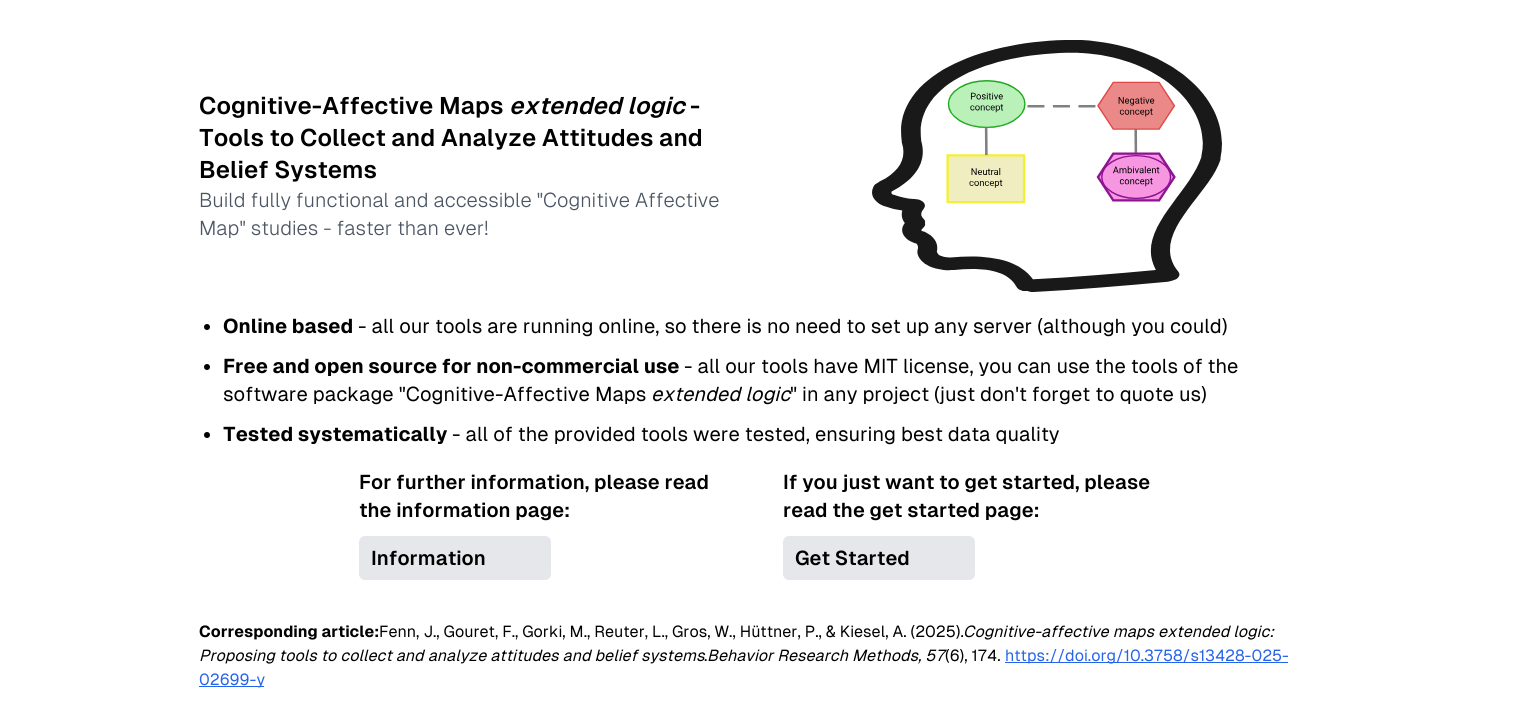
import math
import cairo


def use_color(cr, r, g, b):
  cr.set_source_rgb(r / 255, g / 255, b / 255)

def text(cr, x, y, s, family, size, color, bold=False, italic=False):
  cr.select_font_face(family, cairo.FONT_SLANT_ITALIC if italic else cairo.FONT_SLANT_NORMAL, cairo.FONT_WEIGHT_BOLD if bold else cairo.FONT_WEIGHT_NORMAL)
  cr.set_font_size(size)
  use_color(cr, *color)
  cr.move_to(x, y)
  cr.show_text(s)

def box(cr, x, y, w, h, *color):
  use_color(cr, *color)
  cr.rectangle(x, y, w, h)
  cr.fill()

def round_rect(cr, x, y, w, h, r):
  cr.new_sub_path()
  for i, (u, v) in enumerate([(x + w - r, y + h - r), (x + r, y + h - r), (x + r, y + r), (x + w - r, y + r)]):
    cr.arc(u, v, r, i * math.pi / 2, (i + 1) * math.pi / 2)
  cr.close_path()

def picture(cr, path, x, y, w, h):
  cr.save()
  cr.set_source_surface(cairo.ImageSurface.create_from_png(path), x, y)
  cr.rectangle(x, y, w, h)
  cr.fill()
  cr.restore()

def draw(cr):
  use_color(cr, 255, 255, 255)
  cr.paint()
  picture(cr, "img_01.png", 872, 40, 350, 252)
  use_color(cr, 0, 0, 0)
  cr.arc(207, 327, 3, 0, 2 * math.pi)
  cr.fill()
  cr.arc(207, 367, 3, 0, 2 * math.pi)
  cr.fill()
  cr.arc(207, 435, 3, 0, 2 * math.pi)
  cr.fill()
  use_color(cr, 229, 231, 235)
  round_rect(cr, 359, 536, 192, 44, 6)
  cr.fill()
  round_rect(cr, 783, 536, 192, 44, 6)
  cr.fill()
  box(cr, 1005, 662, 283, 1, 37, 99, 235)
  box(cr, 199, 686, 65, 1, 37, 99, 235)
  text(cr, 199, 114, "Cognitive-Affective Maps", "Geist SemiBold", 24, (0, 0, 0))
  text(cr, 509, 114, "extended logic", "Geist SemiBold", 24, (0, 0, 0), italic=True)
  text(cr, 690, 114, "-", "Geist SemiBold", 24, (0, 0, 0))
  text(cr, 199, 146, "Tools to Collect and Analyze Attitudes and", "Geist SemiBold", 24, (0, 0, 0))
  text(cr, 199, 178, "Belief Systems", "Geist SemiBold", 24, (0, 0, 0))
  text(cr, 199, 207, "Build fully functional and accessible \"Cognitive Affective", "Geist Light", 20, (75, 85, 99))
  text(cr, 199, 235, "Map\" studies - faster than ever!", "Geist Light", 20, (75, 85, 99))
  text(cr, 223, 333, "Online based", "Geist", 20, (0, 0, 0), bold=True)
  text(cr, 358, 333, "- all our tools are running online, so there is no need to set up any server (although you could)", "Geist", 20, (0, 0, 0))
  text(cr, 223, 373, "Free and open source for non-commercial use", "Geist", 20, (0, 0, 0), bold=True)
  text(cr, 684, 373, "- all our tools have MIT license, you can use the tools of the", "Geist", 20, (0, 0, 0))
  text(cr, 223, 401, "software package \"Cognitive-Affective Maps", "Geist", 20, (0, 0, 0))
  text(cr, 651, 401, "extended logic", "Geist", 20, (0, 0, 0), italic=True)
  text(cr, 790, 401, "\" in any project (just don't forget to quote us)", "Geist", 20, (0, 0, 0))
  text(cr, 223, 441, "Tested systematically", "Geist", 20, (0, 0, 0), bold=True)
  text(cr, 452, 441, "- all of the provided tools were tested, ensuring best data quality", "Geist", 20, (0, 0, 0))
  text(cr, 359, 489, "For further information, please read", "Geist SemiBold", 20, (0, 0, 0))
  text(cr, 359, 517, "the information page:", "Geist SemiBold", 20, (0, 0, 0))
  text(cr, 371, 565, "Information", "Geist SemiBold", 20, (0, 0, 0))
  text(cr, 783, 489, "If you just want to get started, please", "Geist SemiBold", 20, (0, 0, 0))
  text(cr, 783, 517, "read the get started page:", "Geist SemiBold", 20, (0, 0, 0))
  text(cr, 795, 565, "Get Started", "Geist SemiBold", 20, (0, 0, 0))
  text(cr, 199, 637, "Corresponding article:", "Geist", 16, (0, 0, 0), bold=True)
  text(cr, 379, 637, "Fenn, J., Gouret, F., Gorki, M., Reuter, L., Gros, W., Hüttner, P., & Kiesel, A. (2025).", "Geist", 16, (0, 0, 0))
  text(cr, 963, 637, "Cognitive-affective maps extended logic:", "Geist", 16, (0, 0, 0), italic=True)
  text(cr, 199, 661, "Proposing tools to collect and analyze attitudes and belief systems", "Geist", 16, (0, 0, 0), italic=True)
  text(cr, 704, 661, ".", "Geist", 16, (0, 0, 0))
  text(cr, 707, 661, "Behavior Research Methods, 57", "Geist", 16, (0, 0, 0), italic=True)
  text(cr, 945, 661, "(6), 174.", "Geist", 16, (0, 0, 0))
  text(cr, 1005, 661, "https://doi.org/10.3758/s13428-025-", "Geist", 16, (37, 99, 235))
  text(cr, 199, 685, "02699-y", "Geist", 16, (37, 99, 235))


surface = cairo.ImageSurface(cairo.FORMAT_RGB24, 1525, 727)
cr = cairo.Context(surface)
options = cairo.FontOptions()
options.set_hint_metrics(cairo.HINT_METRICS_OFF)
options.set_hint_style(cairo.HINT_STYLE_NONE)
cr.set_font_options(options)
cr.set_miter_limit(4)
draw(cr)
surface.write_to_png("out.png")
